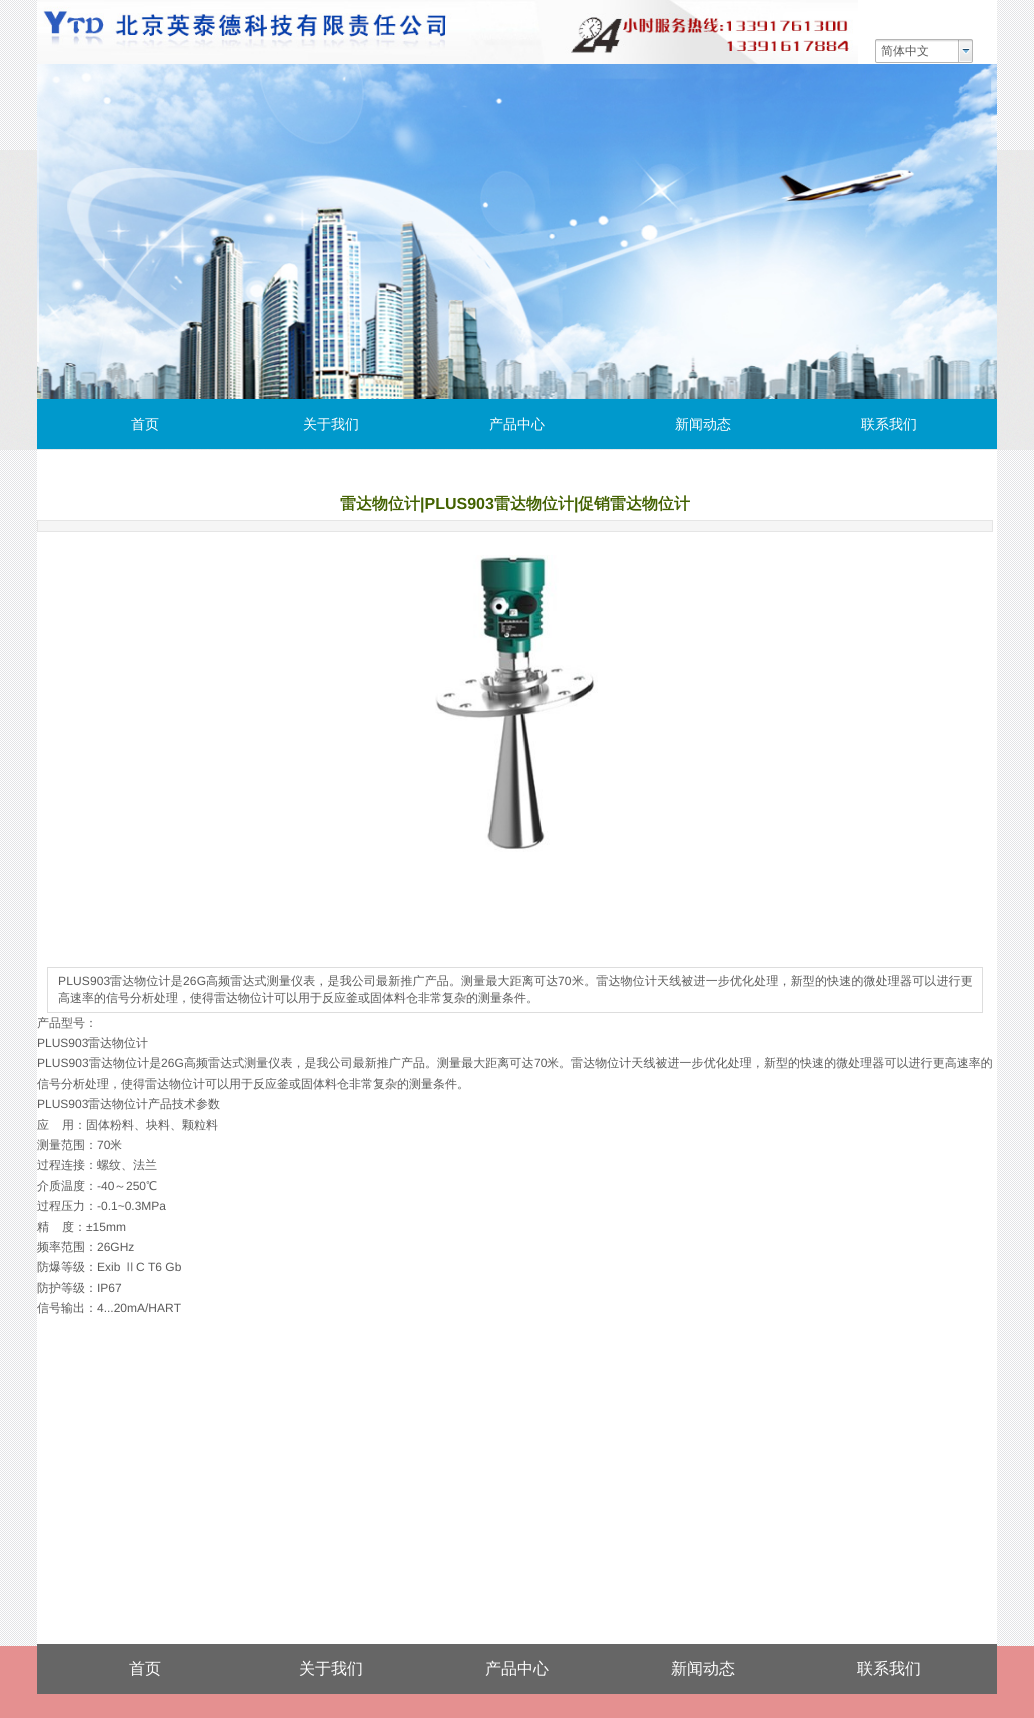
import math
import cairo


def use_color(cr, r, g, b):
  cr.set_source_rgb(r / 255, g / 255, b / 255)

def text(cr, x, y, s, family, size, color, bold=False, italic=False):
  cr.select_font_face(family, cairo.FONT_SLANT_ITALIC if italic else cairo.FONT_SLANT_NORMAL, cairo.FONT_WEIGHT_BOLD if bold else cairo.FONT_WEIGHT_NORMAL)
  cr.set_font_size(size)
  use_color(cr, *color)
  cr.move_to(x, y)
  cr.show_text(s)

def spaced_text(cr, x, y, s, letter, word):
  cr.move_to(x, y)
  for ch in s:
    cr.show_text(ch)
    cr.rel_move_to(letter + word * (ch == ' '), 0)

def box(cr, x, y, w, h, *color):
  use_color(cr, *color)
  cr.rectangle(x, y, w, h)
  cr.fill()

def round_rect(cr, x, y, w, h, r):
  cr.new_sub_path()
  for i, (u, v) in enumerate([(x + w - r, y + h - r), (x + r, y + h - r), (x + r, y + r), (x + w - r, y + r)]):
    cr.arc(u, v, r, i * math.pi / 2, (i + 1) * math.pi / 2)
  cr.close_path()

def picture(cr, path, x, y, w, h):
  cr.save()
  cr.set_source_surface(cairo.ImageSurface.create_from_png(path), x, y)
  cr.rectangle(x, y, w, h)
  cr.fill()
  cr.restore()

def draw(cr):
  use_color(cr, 255, 255, 255)
  cr.paint()
  picture(cr, "img_01.png", 0, 0, 1034, 1646)
  box(cr, 37, 0, 960, 1644, 255, 255, 255)
  picture(cr, "img_02.png", 37, 0, 821, 64)
  picture(cr, "img_03.png", 875, 40, 98, 2)
  round_rect(cr, 875.5, 39.5, 97, 23, 1.5)
  use_color(cr, 181, 181, 181)
  cr.set_line_width(1)
  cr.stroke()
  picture(cr, "img_04.png", 958, 40, 14, 22)
  picture(cr, "img_05.png", 0, 150, 1034, 300)
  picture(cr, "img_06.png", 37, 64, 960, 335)
  box(cr, 37, 399, 960, 50, 0, 153, 204)
  use_color(cr, 245, 245, 245)
  cr.rectangle(37.5, 520.5, 955, 11)
  cr.fill_preserve()
  use_color(cr, 229, 229, 229)
  cr.stroke()
  picture(cr, "img_07.png", 435, 555, 163, 297)
  box(cr, 47, 967, 936, 1, 221, 221, 221)
  box(cr, 982, 967, 1, 46, 221, 221, 221)
  box(cr, 47, 1012, 936, 1, 221, 221, 221)
  box(cr, 47, 967, 1, 46, 221, 221, 221)
  box(cr, 0, 1646, 1034, 72, 229, 144, 144)
  box(cr, 37, 1644, 960, 50, 102, 102, 102)
  text(cr, 881, 55, "简体中文", "WenQuanYi Zen Hei Medium", 12, (90, 90, 90))
  text(cr, 131, 429, "首页", "WenQuanYi Zen Hei Medium", 14, (255, 255, 255))
  text(cr, 303, 429, "关于我们", "WenQuanYi Zen Hei Medium", 14, (255, 255, 255))
  text(cr, 489, 429, "产品中心", "WenQuanYi Zen Hei Medium", 14, (255, 255, 255))
  text(cr, 675, 429, "新闻动态", "WenQuanYi Zen Hei Medium", 14, (255, 255, 255))
  text(cr, 861, 429, "联系我们", "WenQuanYi Zen Hei Medium", 14, (255, 255, 255))
  text(cr, 340, 509, "雷达物位计", "WenQuanYi Zen Hei", 16, (66, 97, 0), bold=True)
  text(cr, 420, 509, "|PLUS903", "Liberation Sans", 16, (66, 97, 0), bold=True)
  text(cr, 494, 509, "雷达物位计", "WenQuanYi Zen Hei", 16, (66, 97, 0), bold=True)
  text(cr, 574, 509, "|", "Liberation Sans", 16, (66, 97, 0), bold=True)
  text(cr, 578, 509, "促销雷达物位计", "WenQuanYi Zen Hei", 16, (66, 97, 0), bold=True)
  cr.select_font_face("Liberation Sans")
  cr.set_font_size(12)
  use_color(cr, 90, 90, 90)
  spaced_text(cr, 58, 985, "PLUS903", 0.15, 0)
  cr.select_font_face("WenQuanYi Zen Hei Medium")
  spaced_text(cr, 110, 985, "雷达物位计是", 0.15, 0)
  cr.select_font_face("Liberation Sans")
  spaced_text(cr, 183, 985, "26G", 0.15, 0)
  cr.select_font_face("WenQuanYi Zen Hei Medium")
  spaced_text(cr, 206, 985, "高频雷达式测量仪表，是我公司最新推广产品。测量最大距离可达", 0.15, 0)
  cr.select_font_face("Liberation Sans")
  spaced_text(cr, 558, 985, "70", 0.15, 0)
  cr.select_font_face("WenQuanYi Zen Hei Medium")
  spaced_text(cr, 572, 985, "米。雷达物位计天线被进一步优化处理，新型的快速的微处理器可以进行更", 0.15, 0)
  text(cr, 58, 1002, "高速率的信号分析处理，使得雷达物位计可以用于反应釜或固体料仓非常复杂的测量条件。", "WenQuanYi Zen Hei Medium", 12, (90, 90, 90))
  text(cr, 37, 1027, "产品型号：", "WenQuanYi Zen Hei Medium", 12, (90, 90, 90))
  text(cr, 37, 1047, "PLUS903", "Liberation Sans", 12, (90, 90, 90))
  text(cr, 88, 1047, "雷达物位计", "WenQuanYi Zen Hei Medium", 12, (90, 90, 90))
  cr.select_font_face("Liberation Sans")
  spaced_text(cr, 37, 1067, "PLUS903", 0.05, 0)
  cr.select_font_face("WenQuanYi Zen Hei Medium")
  spaced_text(cr, 89, 1067, "雷达物位计是", 0.05, 0)
  cr.select_font_face("Liberation Sans")
  spaced_text(cr, 161, 1067, "26G", 0.05, 0)
  cr.select_font_face("WenQuanYi Zen Hei Medium")
  spaced_text(cr, 184, 1067, "高频雷达式测量仪表，是我公司最新推广产品。测量最大距离可达", 0.05, 0)
  cr.select_font_face("Liberation Sans")
  spaced_text(cr, 534, 1067, "70", 0.05, 0)
  cr.select_font_face("WenQuanYi Zen Hei Medium")
  spaced_text(cr, 547, 1067, "米。雷达物位计天线被进一步优化处理，新型的快速的微处理器可以进行更高速率的", 0.05, 0)
  text(cr, 37, 1088, "信号分析处理，使得雷达物位计可以用于反应釜或固体料仓非常复杂的测量条件。", "WenQuanYi Zen Hei Medium", 12, (90, 90, 90))
  text(cr, 37, 1108, "PLUS903", "Liberation Sans", 12, (90, 90, 90))
  text(cr, 88, 1108, "雷达物位计产品技术参数", "WenQuanYi Zen Hei Medium", 12, (90, 90, 90))
  text(cr, 37, 1129, "应", "WenQuanYi Zen Hei Medium", 12, (90, 90, 90))
  text(cr, 62, 1129, "用：固体粉料、块料、颗粒料", "WenQuanYi Zen Hei Medium", 12, (90, 90, 90))
  text(cr, 37, 1149, "测量范围：", "WenQuanYi Zen Hei Medium", 12, (90, 90, 90))
  text(cr, 97, 1149, "70", "Liberation Sans", 12, (90, 90, 90))
  text(cr, 110, 1149, "米", "WenQuanYi Zen Hei Medium", 12, (90, 90, 90))
  text(cr, 37, 1169, "过程连接：螺纹、法兰", "WenQuanYi Zen Hei Medium", 12, (90, 90, 90))
  text(cr, 37, 1190, "介质温度：", "WenQuanYi Zen Hei Medium", 12, (90, 90, 90))
  text(cr, 97, 1190, "-40", "Liberation Sans", 12, (90, 90, 90))
  text(cr, 114, 1190, "～", "WenQuanYi Zen Hei Medium", 12, (90, 90, 90))
  text(cr, 126, 1190, "250", "Liberation Sans", 12, (90, 90, 90))
  text(cr, 146, 1190, "℃", "WenQuanYi Zen Hei Medium", 12, (90, 90, 90))
  text(cr, 37, 1210, "过程压力：", "WenQuanYi Zen Hei Medium", 12, (90, 90, 90))
  text(cr, 97, 1210, "-0.1~0.3MPa", "Liberation Sans", 12, (90, 90, 90))
  text(cr, 37, 1231, "精", "WenQuanYi Zen Hei Medium", 12, (90, 90, 90))
  text(cr, 62, 1231, "度：", "WenQuanYi Zen Hei Medium", 12, (90, 90, 90))
  text(cr, 86, 1231, "±15mm", "Liberation Sans", 12, (90, 90, 90))
  text(cr, 37, 1251, "频率范围：", "WenQuanYi Zen Hei Medium", 12, (90, 90, 90))
  text(cr, 97, 1251, "26GHz", "Liberation Sans", 12, (90, 90, 90))
  text(cr, 37, 1271, "防爆等级：", "WenQuanYi Zen Hei Medium", 12, (90, 90, 90))
  text(cr, 97, 1271, "Exib", "Liberation Sans", 12, (90, 90, 90))
  text(cr, 124, 1271, "Ⅱ", "WenQuanYi Zen Hei Medium", 12, (90, 90, 90))
  text(cr, 136, 1271, "C T6 Gb", "Liberation Sans", 12, (90, 90, 90))
  text(cr, 37, 1292, "防护等级：", "WenQuanYi Zen Hei Medium", 12, (90, 90, 90))
  text(cr, 97, 1292, "IP67", "Liberation Sans", 12, (90, 90, 90))
  text(cr, 37, 1312, "信号输出：", "WenQuanYi Zen Hei Medium", 12, (90, 90, 90))
  text(cr, 97, 1312, "4...20mA/HART", "Liberation Sans", 12, (90, 90, 90))
  text(cr, 129, 1674, "首页", "WenQuanYi Zen Hei Medium", 16, (255, 255, 255))
  text(cr, 299, 1674, "关于我们", "WenQuanYi Zen Hei Medium", 16, (255, 255, 255))
  text(cr, 485, 1674, "产品中心", "WenQuanYi Zen Hei Medium", 16, (255, 255, 255))
  text(cr, 671, 1674, "新闻动态", "WenQuanYi Zen Hei Medium", 16, (255, 255, 255))
  text(cr, 857, 1674, "联系我们", "WenQuanYi Zen Hei Medium", 16, (255, 255, 255))


surface = cairo.ImageSurface(cairo.FORMAT_RGB24, 1034, 1718)
cr = cairo.Context(surface)
options = cairo.FontOptions()
options.set_hint_metrics(cairo.HINT_METRICS_OFF)
options.set_hint_style(cairo.HINT_STYLE_NONE)
cr.set_font_options(options)
cr.set_miter_limit(4)
draw(cr)
surface.write_to_png("out.png")
